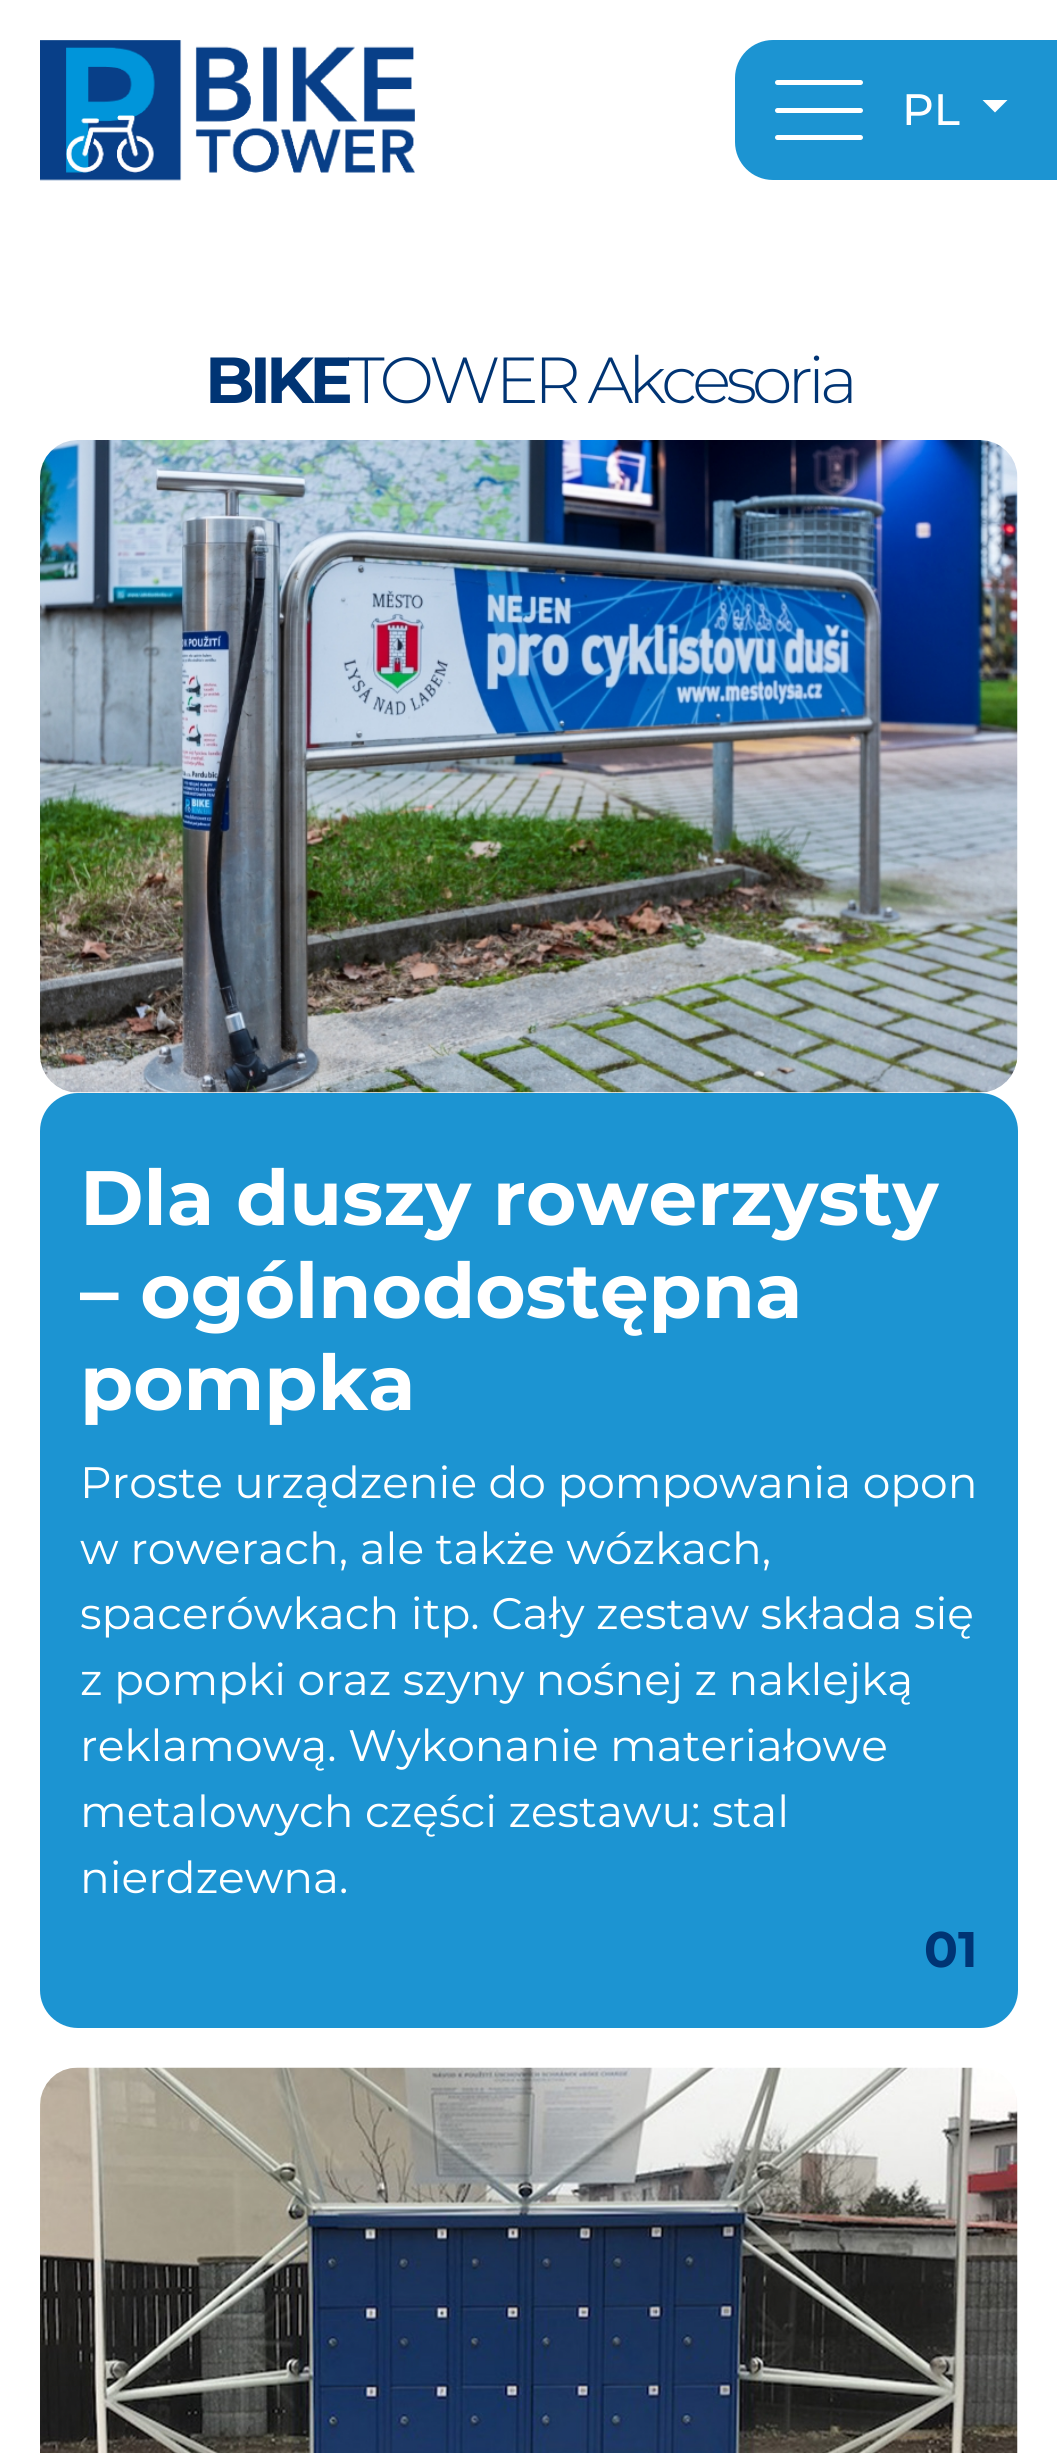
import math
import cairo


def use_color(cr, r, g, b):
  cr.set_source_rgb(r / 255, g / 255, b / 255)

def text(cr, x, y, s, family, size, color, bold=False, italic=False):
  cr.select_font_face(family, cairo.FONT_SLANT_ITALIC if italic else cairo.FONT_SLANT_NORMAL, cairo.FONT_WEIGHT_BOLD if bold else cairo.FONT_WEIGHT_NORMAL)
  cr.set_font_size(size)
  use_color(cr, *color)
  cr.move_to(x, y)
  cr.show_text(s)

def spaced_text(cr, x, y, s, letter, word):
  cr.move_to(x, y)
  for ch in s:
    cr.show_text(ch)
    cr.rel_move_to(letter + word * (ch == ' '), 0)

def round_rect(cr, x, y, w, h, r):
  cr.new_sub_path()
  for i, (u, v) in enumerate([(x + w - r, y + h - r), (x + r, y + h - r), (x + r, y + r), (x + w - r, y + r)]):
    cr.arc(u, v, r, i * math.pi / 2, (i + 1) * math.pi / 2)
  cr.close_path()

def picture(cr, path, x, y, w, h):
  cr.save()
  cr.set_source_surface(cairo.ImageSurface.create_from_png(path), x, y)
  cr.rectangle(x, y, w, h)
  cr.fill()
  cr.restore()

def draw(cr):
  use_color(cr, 255, 255, 255)
  cr.paint()
  picture(cr, "img_01.png", 40, 40, 375, 141)
  use_color(cr, 28, 148, 210)
  cr.new_path()
  cr.move_to(773, 40)
  cr.line_to(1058, 40)
  cr.line_to(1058, 180)
  cr.line_to(773, 180)
  cr.curve_to(752, 180, 735, 163, 735, 142)
  cr.line_to(735, 78)
  cr.curve_to(735, 57, 752, 40, 773, 40)
  cr.close_path()
  cr.fill()
  use_color(cr, 255, 255, 255)
  round_rect(cr, 775, 80, 88, 5, 2.5)
  cr.fill()
  round_rect(cr, 775, 108, 88, 5, 2.5)
  cr.fill()
  round_rect(cr, 775, 135, 88, 5, 2.5)
  cr.fill()
  cr.new_path()
  cr.move_to(982.5, 100)
  cr.line_to(1007.5, 100)
  cr.line_to(995, 112.5)
  cr.close_path()
  cr.fill()
  picture(cr, "img_02.png", 40, 440, 978, 653)
  use_color(cr, 28, 148, 210)
  round_rect(cr, 40, 1093, 978, 935, 38)
  cr.fill()
  picture(cr, "img_03.png", 40, 2067, 978, 386)
  text(cr, 902, 125, "PL", "Montserrat Medium", 44, (255, 255, 255))
  cr.select_font_face("Montserrat", cairo.FONT_SLANT_NORMAL, cairo.FONT_WEIGHT_BOLD)
  cr.set_font_size(65)
  use_color(cr, 0, 52, 116)
  spaced_text(cr, 205, 403, "BIKE", -5, 0)
  cr.select_font_face("Montserrat Light")
  spaced_text(cr, 348, 403, "TOWER Akcesoria", -5, 0)
  text(cr, 80, 1225, "Dla duszy rowerzysty", "Montserrat", 77, (255, 255, 255), bold=True)
  text(cr, 80, 1318, "– ogólnodostępna", "Montserrat", 77, (255, 255, 255), bold=True)
  text(cr, 80, 1410, "pompka", "Montserrat", 77, (255, 255, 255), bold=True)
  text(cr, 80, 1498, "Proste urządzenie do pompowania opon", "Montserrat", 44, (255, 255, 255))
  text(cr, 80, 1564, "w rowerach, ale także wózkach,", "Montserrat", 44, (255, 255, 255))
  text(cr, 80, 1629, "spacerówkach itp. Cały zestaw składa się", "Montserrat", 44, (255, 255, 255))
  text(cr, 80, 1695, "z pompki oraz szyny nośnej z naklejką", "Montserrat", 44, (255, 255, 255))
  text(cr, 80, 1761, "reklamową. Wykonanie materiałowe", "Montserrat", 44, (255, 255, 255))
  text(cr, 80, 1827, "metalowych części zestawu: stal", "Montserrat", 44, (255, 255, 255))
  text(cr, 80, 1893, "nierdzewna.", "Montserrat", 44, (255, 255, 255))
  text(cr, 924, 1967, "01", "Montserrat", 50, (0, 52, 116), bold=True)


surface = cairo.ImageSurface(cairo.FORMAT_RGB24, 1057, 2453)
cr = cairo.Context(surface)
options = cairo.FontOptions()
options.set_hint_metrics(cairo.HINT_METRICS_OFF)
options.set_hint_style(cairo.HINT_STYLE_NONE)
cr.set_font_options(options)
cr.set_miter_limit(4)
draw(cr)
surface.write_to_png("out.png")
